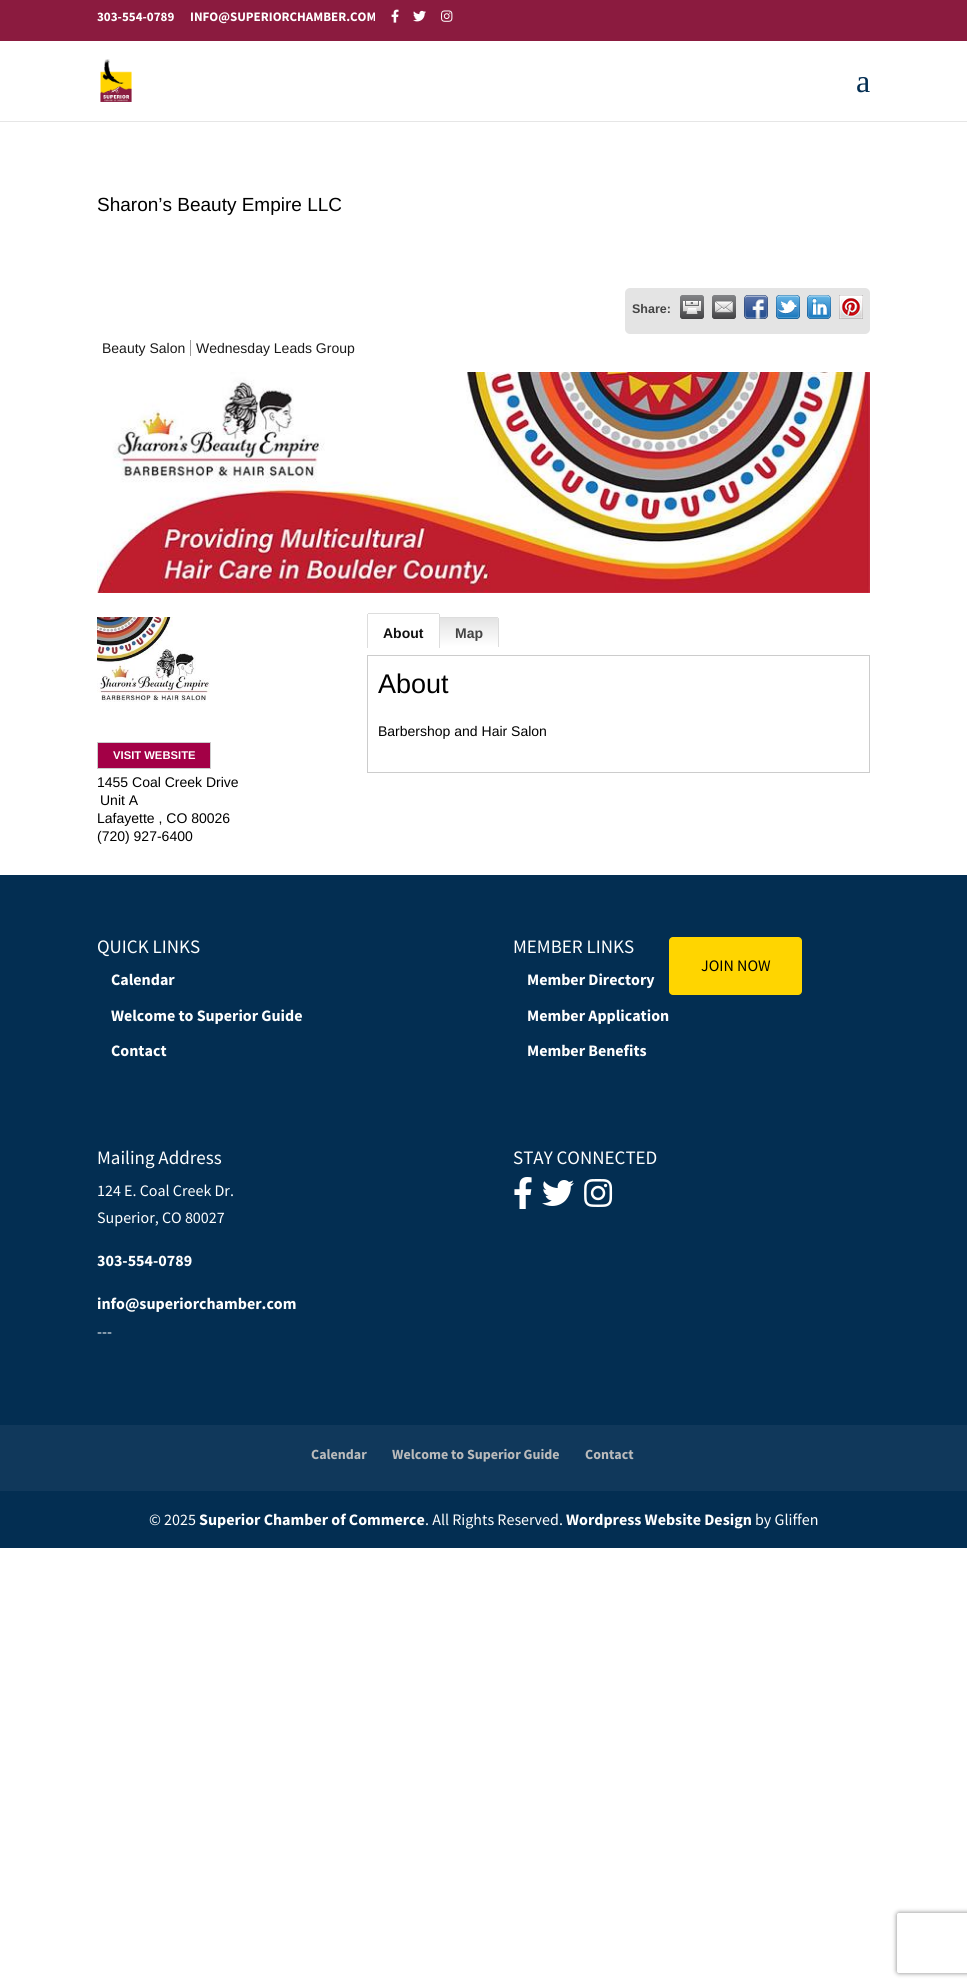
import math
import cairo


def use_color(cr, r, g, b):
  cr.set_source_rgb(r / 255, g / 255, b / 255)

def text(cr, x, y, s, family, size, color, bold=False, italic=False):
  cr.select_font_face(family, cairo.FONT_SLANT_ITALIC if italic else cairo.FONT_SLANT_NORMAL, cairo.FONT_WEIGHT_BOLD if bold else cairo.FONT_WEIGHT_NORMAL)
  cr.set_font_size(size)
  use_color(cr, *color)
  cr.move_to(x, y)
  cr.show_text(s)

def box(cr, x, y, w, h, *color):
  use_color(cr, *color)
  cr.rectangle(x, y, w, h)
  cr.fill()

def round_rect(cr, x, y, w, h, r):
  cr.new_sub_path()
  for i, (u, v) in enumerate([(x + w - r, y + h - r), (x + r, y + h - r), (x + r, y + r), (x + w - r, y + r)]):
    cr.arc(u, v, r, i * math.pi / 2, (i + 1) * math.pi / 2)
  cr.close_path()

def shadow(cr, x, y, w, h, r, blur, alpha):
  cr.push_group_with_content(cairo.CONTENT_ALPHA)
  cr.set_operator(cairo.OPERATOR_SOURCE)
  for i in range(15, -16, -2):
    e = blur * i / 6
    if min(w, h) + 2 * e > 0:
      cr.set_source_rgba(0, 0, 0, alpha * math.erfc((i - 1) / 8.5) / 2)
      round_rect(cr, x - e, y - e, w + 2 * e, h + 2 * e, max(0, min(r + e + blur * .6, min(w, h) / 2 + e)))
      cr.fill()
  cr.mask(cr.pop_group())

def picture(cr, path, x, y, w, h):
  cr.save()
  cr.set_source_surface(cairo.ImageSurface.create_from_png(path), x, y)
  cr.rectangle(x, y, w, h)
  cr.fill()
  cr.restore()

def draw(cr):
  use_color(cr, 255, 255, 255)
  cr.paint()
  box(cr, 0, 0, 967, 41, 139, 27, 63)
  picture(cr, "img_01.png", 391, 9, 8, 14)
  picture(cr, "img_02.png", 413, 10, 13, 12)
  picture(cr, "img_03.png", 441, 10, 12, 12)
  box(cr, 0, 121, 967, 1, 230, 230, 230)
  picture(cr, "img_04.png", 100, 59, 32, 43)
  use_color(cr, 228, 228, 228)
  round_rect(cr, 625, 288, 245, 46, 5)
  cr.fill()
  picture(cr, "img_05.png", 680, 295, 24, 24)
  picture(cr, "img_06.png", 712, 295, 24, 24)
  picture(cr, "img_07.png", 744, 295, 24, 24)
  picture(cr, "img_08.png", 776, 295, 24, 24)
  picture(cr, "img_09.png", 807, 295, 24, 24)
  picture(cr, "img_10.png", 839, 295, 24, 24)
  box(cr, 190, 340, 1, 16, 153, 153, 153)
  picture(cr, "img_11.png", 97, 372, 773, 221)
  box(cr, 368, 613, 71, 1, 221, 221, 221)
  box(cr, 439, 614, 1, 34, 221, 221, 221)
  box(cr, 367, 614, 1, 34, 221, 221, 221)
  gradient = cairo.LinearGradient(469, 618, 469, 647)
  gradient.add_color_stop_rgba(0, 0.894, 0.894, 0.894, 1)
  gradient.add_color_stop_rgba(1, 1, 1, 1, 1)
  cr.set_source(gradient)
  cr.new_path()
  cr.move_to(440, 618)
  cr.line_to(497, 618)
  cr.curve_to(497.5, 618, 498, 618.5, 498, 619)
  cr.line_to(498, 647)
  cr.line_to(440, 647)
  cr.close_path()
  cr.fill()
  box(cr, 440, 617, 58, 1, 221, 221, 221)
  box(cr, 498, 618, 1, 29, 221, 221, 221)
  cr.rectangle(367.5, 655.5, 502, 117)
  use_color(cr, 204, 204, 204)
  cr.set_line_width(1)
  cr.stroke()
  picture(cr, "img_12.png", 97, 617, 113, 85)
  use_color(cr, 163, 0, 70)
  cr.rectangle(97.5, 742.5, 113, 26)
  cr.fill_preserve()
  use_color(cr, 204, 204, 204)
  cr.stroke()
  box(cr, 0, 875, 967, 673, 3, 46, 82)
  use_color(cr, 255, 213, 0)
  round_rect(cr, 669, 937, 133, 58, 4)
  cr.fill()
  picture(cr, "img_13.png", 514, 1177, 18, 32)
  picture(cr, "img_14.png", 542, 1180, 32, 26)
  picture(cr, "img_15.png", 584, 1179, 29, 28)
  box(cr, 0, 1425, 967, 66, 16, 56, 91)
  cr.save()
  cr.set_fill_rule(cairo.FILL_RULE_EVEN_ODD)
  cr.new_path()
  cr.move_to(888, 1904)
  cr.line_to(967, 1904)
  cr.line_to(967, 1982)
  cr.line_to(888, 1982)
  cr.close_path()
  cr.move_to(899, 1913)
  cr.line_to(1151, 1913)
  cr.curve_to(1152, 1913, 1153, 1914, 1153, 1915)
  cr.line_to(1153, 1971)
  cr.curve_to(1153, 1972, 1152, 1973, 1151, 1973)
  cr.line_to(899, 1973)
  cr.curve_to(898, 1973, 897, 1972, 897, 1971)
  cr.line_to(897, 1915)
  cr.curve_to(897, 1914, 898, 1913, 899, 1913)
  cr.close_path()
  cr.clip()
  use_color(cr, 128, 128, 128)
  shadow(cr, 897, 1913, 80, 60, 2, 2.5, 1)
  cr.restore()
  text(cr, 97, 21, "303-554-0789", "Source Sans Pro", 13, (255, 255, 255), bold=True)
  text(cr, 190, 21, "INFO@SUPERIORCHAMBER.COM", "Source Sans Pro", 13, (255, 255, 255), bold=True)
  text(cr, 856, 92, "a", "Liberation Serif", 32, (3, 46, 82))
  text(cr, 97, 211, "Sharon’s Beauty Empire LLC", "Liberation Sans", 19, (0, 0, 0))
  text(cr, 632, 313, "Share:", "Liberation Sans", 12.5, (68, 68, 68), bold=True)
  text(cr, 102, 353, "Beauty Salon", "Liberation Sans", 14, (26, 26, 26))
  text(cr, 196, 353, "Wednesday Leads Group", "Liberation Sans", 14, (26, 26, 26))
  text(cr, 383, 638, "About", "Liberation Sans", 14, (17, 17, 17), bold=True)
  text(cr, 455, 638, "Map", "Liberation Sans", 14, (68, 68, 68), bold=True)
  text(cr, 378, 693, "About", "Liberation Sans", 27, (0, 0, 0))
  text(cr, 378, 736, "Barbershop and Hair Salon", "Liberation Sans", 14, (0, 0, 0))
  text(cr, 113, 759, "VISIT WEBSITE", "Liberation Sans", 11.25, (255, 255, 255), bold=True)
  text(cr, 97, 787, "1455 Coal Creek Drive", "Liberation Sans", 14, (0, 0, 0))
  text(cr, 100, 805, "Unit A", "Liberation Sans", 14, (0, 0, 0))
  text(cr, 97, 823, "Lafayette , CO 80026", "Liberation Sans", 14, (0, 0, 0))
  text(cr, 97, 841, "(720) 927-6400", "Liberation Sans", 14, (0, 0, 0))
  text(cr, 97, 953, "QUICK LINKS", "Source Sans Pro", 19, (255, 255, 255))
  text(cr, 111, 985, "Calendar", "Source Sans Pro", 16, (255, 255, 255), bold=True)
  text(cr, 111, 1021, "Welcome to Superior Guide", "Source Sans Pro", 16, (255, 255, 255), bold=True)
  text(cr, 111, 1056, "Contact", "Source Sans Pro", 16, (255, 255, 255), bold=True)
  text(cr, 513, 953, "MEMBER LINKS", "Source Sans Pro", 19, (255, 255, 255))
  text(cr, 527, 985, "Member Directory", "Source Sans Pro", 16, (255, 255, 255), bold=True)
  text(cr, 527, 1021, "Member Application", "Source Sans Pro", 16, (255, 255, 255), bold=True)
  text(cr, 527, 1056, "Member Benefits", "Source Sans Pro", 16, (255, 255, 255), bold=True)
  text(cr, 701, 971, "JOIN NOW", "Source Sans Pro", 16, (0, 0, 0))
  text(cr, 97, 1164, "Mailing Address", "Source Sans Pro", 19, (255, 255, 255))
  text(cr, 97, 1196, "124 E. Coal Creek Dr.", "Source Sans Pro", 16, (255, 255, 255))
  text(cr, 97, 1223, "Superior, CO 80027", "Source Sans Pro", 16, (255, 255, 255))
  text(cr, 97, 1266, "303-554-0789", "Source Sans Pro", 16, (255, 255, 255), bold=True)
  text(cr, 97, 1309, "info@superiorchamber.com", "Source Sans Pro", 16, (255, 255, 255), bold=True)
  text(cr, 97, 1337, "---", "Source Sans Pro", 16, (255, 255, 255))
  text(cr, 513, 1164, "STAY CONNECTED", "Source Sans Pro", 19, (255, 255, 255))
  text(cr, 311, 1459, "Calendar", "Source Sans Pro", 14, (187, 187, 187), bold=True)
  text(cr, 392, 1459, "Welcome to Superior Guide", "Source Sans Pro", 14, (187, 187, 187), bold=True)
  text(cr, 585, 1459, "Contact", "Source Sans Pro", 14, (187, 187, 187), bold=True)
  text(cr, 149, 1525, "© 2025", "Source Sans Pro", 16, (255, 255, 255))
  text(cr, 199, 1525, "Superior Chamber of Commerce", "Source Sans Pro", 16, (255, 255, 255), bold=True)
  text(cr, 425, 1525, ". All Rights Reserved.", "Source Sans Pro", 16, (255, 255, 255))
  text(cr, 566, 1525, "Wordpress Website Design", "Source Sans Pro", 16, (255, 255, 255), bold=True)
  text(cr, 755, 1525, "by Gliffen", "Source Sans Pro", 16, (255, 255, 255))


surface = cairo.ImageSurface(cairo.FORMAT_RGB24, 967, 1987)
cr = cairo.Context(surface)
options = cairo.FontOptions()
options.set_hint_metrics(cairo.HINT_METRICS_OFF)
options.set_hint_style(cairo.HINT_STYLE_NONE)
cr.set_font_options(options)
cr.set_miter_limit(4)
draw(cr)
surface.write_to_png("out.png")
